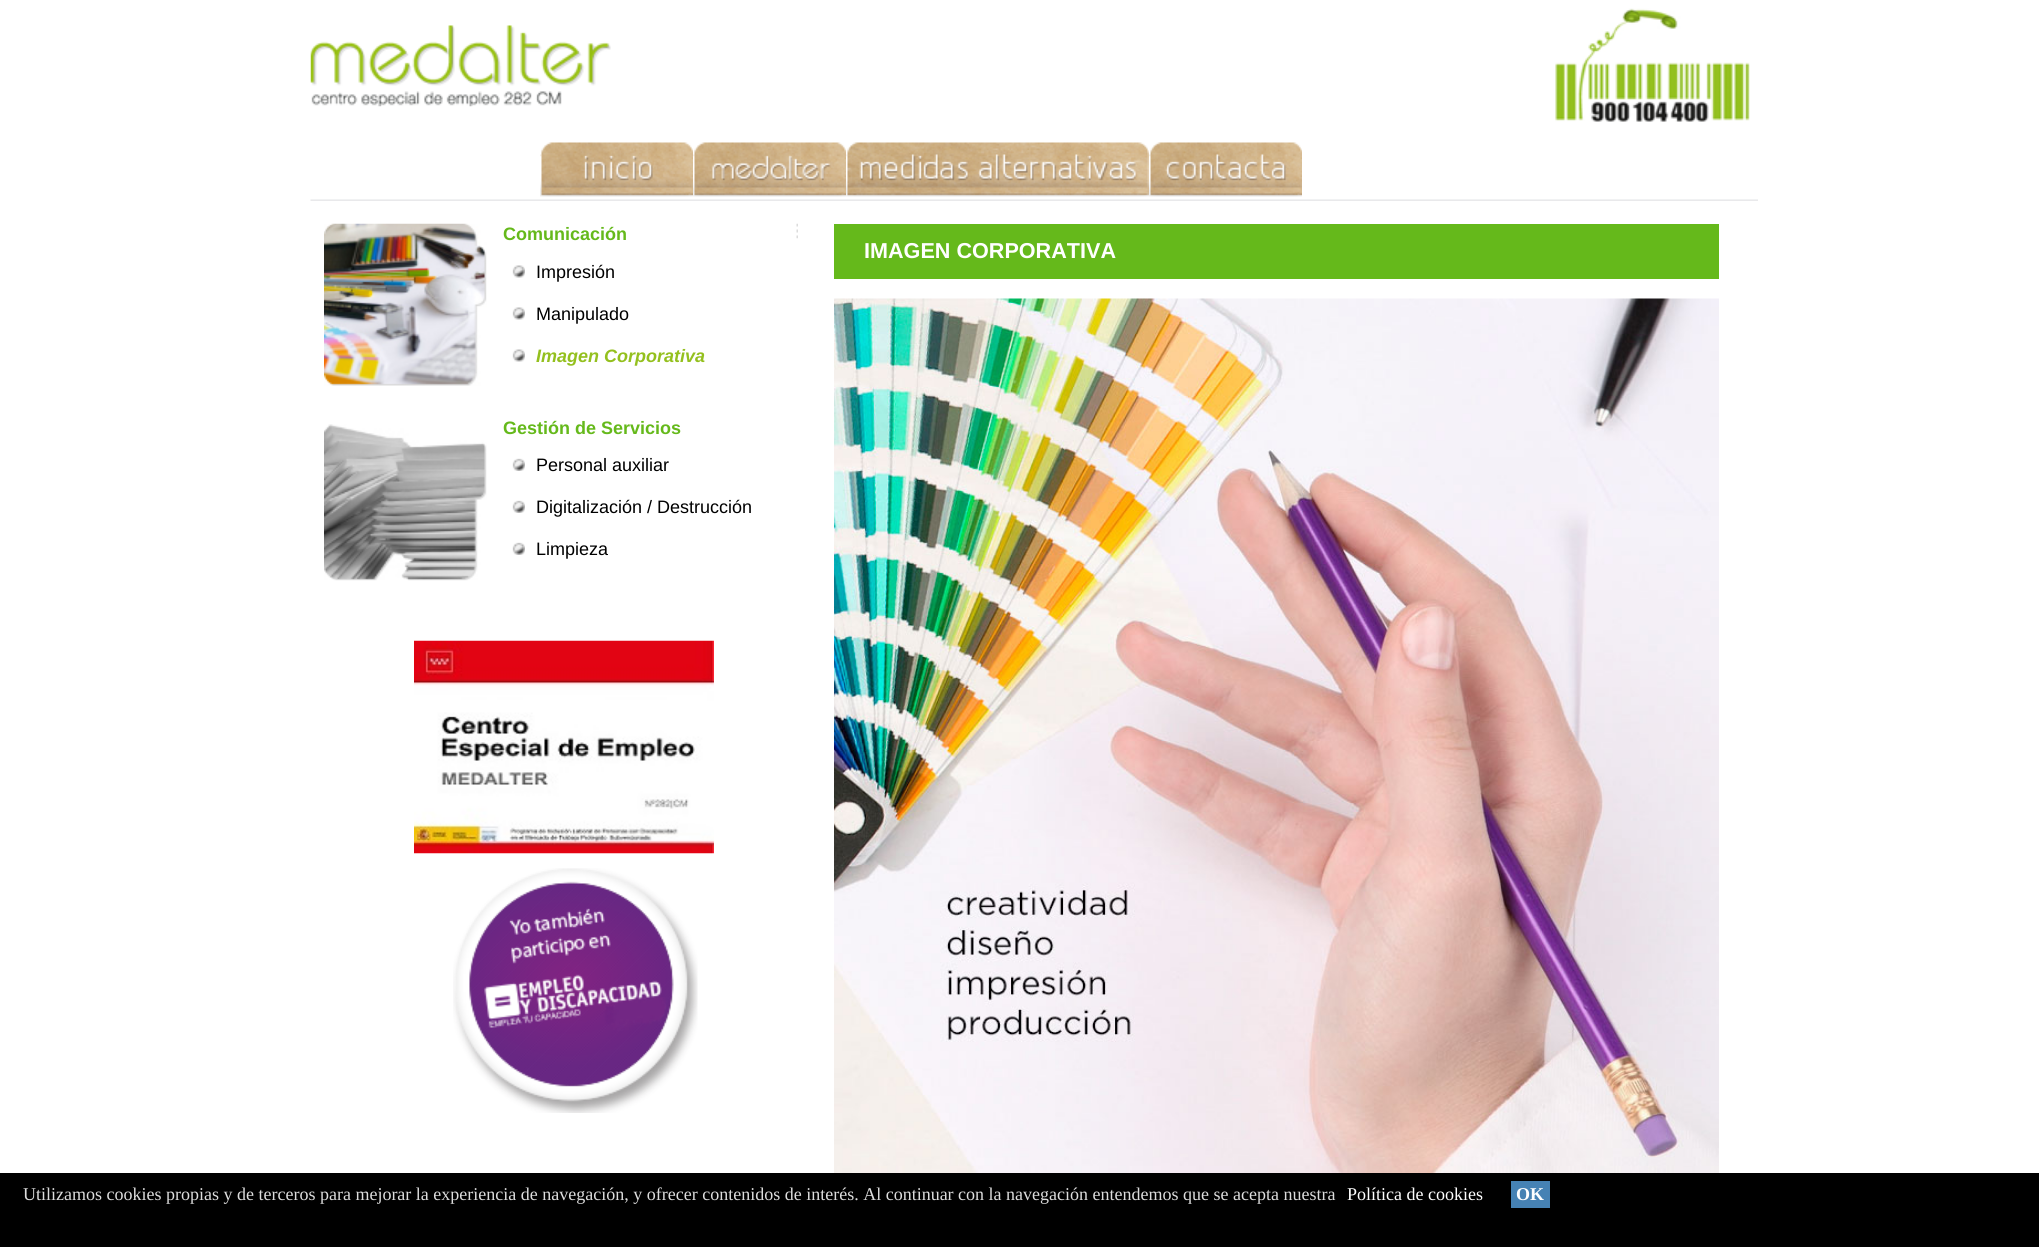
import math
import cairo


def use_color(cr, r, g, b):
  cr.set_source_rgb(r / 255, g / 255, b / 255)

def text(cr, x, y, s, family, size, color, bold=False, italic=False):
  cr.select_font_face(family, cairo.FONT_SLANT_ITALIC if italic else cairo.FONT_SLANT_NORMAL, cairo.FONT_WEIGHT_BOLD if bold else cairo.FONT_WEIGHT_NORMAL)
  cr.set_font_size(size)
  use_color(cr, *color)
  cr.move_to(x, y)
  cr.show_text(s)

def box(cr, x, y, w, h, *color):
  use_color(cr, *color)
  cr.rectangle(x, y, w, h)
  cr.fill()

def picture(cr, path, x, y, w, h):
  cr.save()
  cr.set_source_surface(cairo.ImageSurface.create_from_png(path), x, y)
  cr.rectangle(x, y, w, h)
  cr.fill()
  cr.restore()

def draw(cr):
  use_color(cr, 255, 255, 255)
  cr.paint()
  picture(cr, "img_01.png", 310, 25, 301, 82)
  picture(cr, "img_02.png", 1555, 8, 195, 114)
  picture(cr, "img_03.png", 540, 142, 153, 55)
  picture(cr, "img_04.png", 693, 142, 153, 55)
  picture(cr, "img_05.png", 846, 142, 303, 55)
  picture(cr, "img_06.png", 1149, 142, 153, 55)
  picture(cr, "img_07.png", 310, 199, 1448, 2)
  picture(cr, "img_08.png", 796, 223, 2, 16)
  picture(cr, "img_09.png", 324, 223, 163, 163)
  picture(cr, "img_10.png", 512, 265, 13, 13)
  picture(cr, "img_10.png", 512, 307, 13, 13)
  picture(cr, "img_10.png", 512, 349, 13, 13)
  picture(cr, "img_11.png", 324, 424, 163, 157)
  picture(cr, "img_12.png", 512, 458, 13, 13)
  picture(cr, "img_12.png", 512, 500, 13, 13)
  picture(cr, "img_12.png", 512, 542, 13, 13)
  picture(cr, "img_13.png", 414, 640, 300, 214)
  picture(cr, "img_14.png", 453, 868, 245, 245)
  box(cr, 834, 224, 885, 55, 101, 185, 27)
  picture(cr, "img_15.png", 834, 298, 885, 875)
  box(cr, 0, 1173, 2039, 74, 0, 0, 0)
  box(cr, 1511, 1181, 39, 27, 70, 130, 180)
  text(cr, 503, 240, "Comunicación", "Liberation Sans", 18, (101, 185, 27), bold=True)
  text(cr, 536, 278, "Impresión", "Liberation Sans", 18, (0, 0, 0))
  text(cr, 536, 320, "Manipulado", "Liberation Sans", 18, (0, 0, 0))
  text(cr, 536, 362, "Imagen Corporativa", "Liberation Sans", 18, (148, 192, 30), bold=True, italic=True)
  text(cr, 503, 434, "Gestión de Servicios", "Liberation Sans", 18, (101, 185, 27), bold=True)
  text(cr, 536, 471, "Personal auxiliar", "Liberation Sans", 18, (0, 0, 0))
  text(cr, 536, 513, "Digitalización / Destrucción", "Liberation Sans", 18, (0, 0, 0))
  text(cr, 536, 555, "Limpieza", "Liberation Sans", 18, (0, 0, 0))
  text(cr, 864, 258, "IMAGEN CORPORATIVA", "Liberation Sans", 21.6, (255, 255, 255), bold=True)
  text(cr, 23, 1200, "Utilizamos cookies propias y de terceros para mejorar la experiencia de navegación, y ofrecer contenidos de interés. Al continuar con la navegación entendemos que se acepta nuestra", "Liberation Serif", 18, (221, 221, 221))
  text(cr, 1347, 1200, "Política de cookies", "Liberation Serif", 18, (255, 255, 255))
  text(cr, 1516, 1200, "OK", "Liberation Serif", 18, (255, 255, 255), bold=True)


surface = cairo.ImageSurface(cairo.FORMAT_RGB24, 2039, 1247)
cr = cairo.Context(surface)
options = cairo.FontOptions()
options.set_hint_metrics(cairo.HINT_METRICS_OFF)
options.set_hint_style(cairo.HINT_STYLE_NONE)
cr.set_font_options(options)
cr.set_miter_limit(4)
draw(cr)
surface.write_to_png("out.png")
